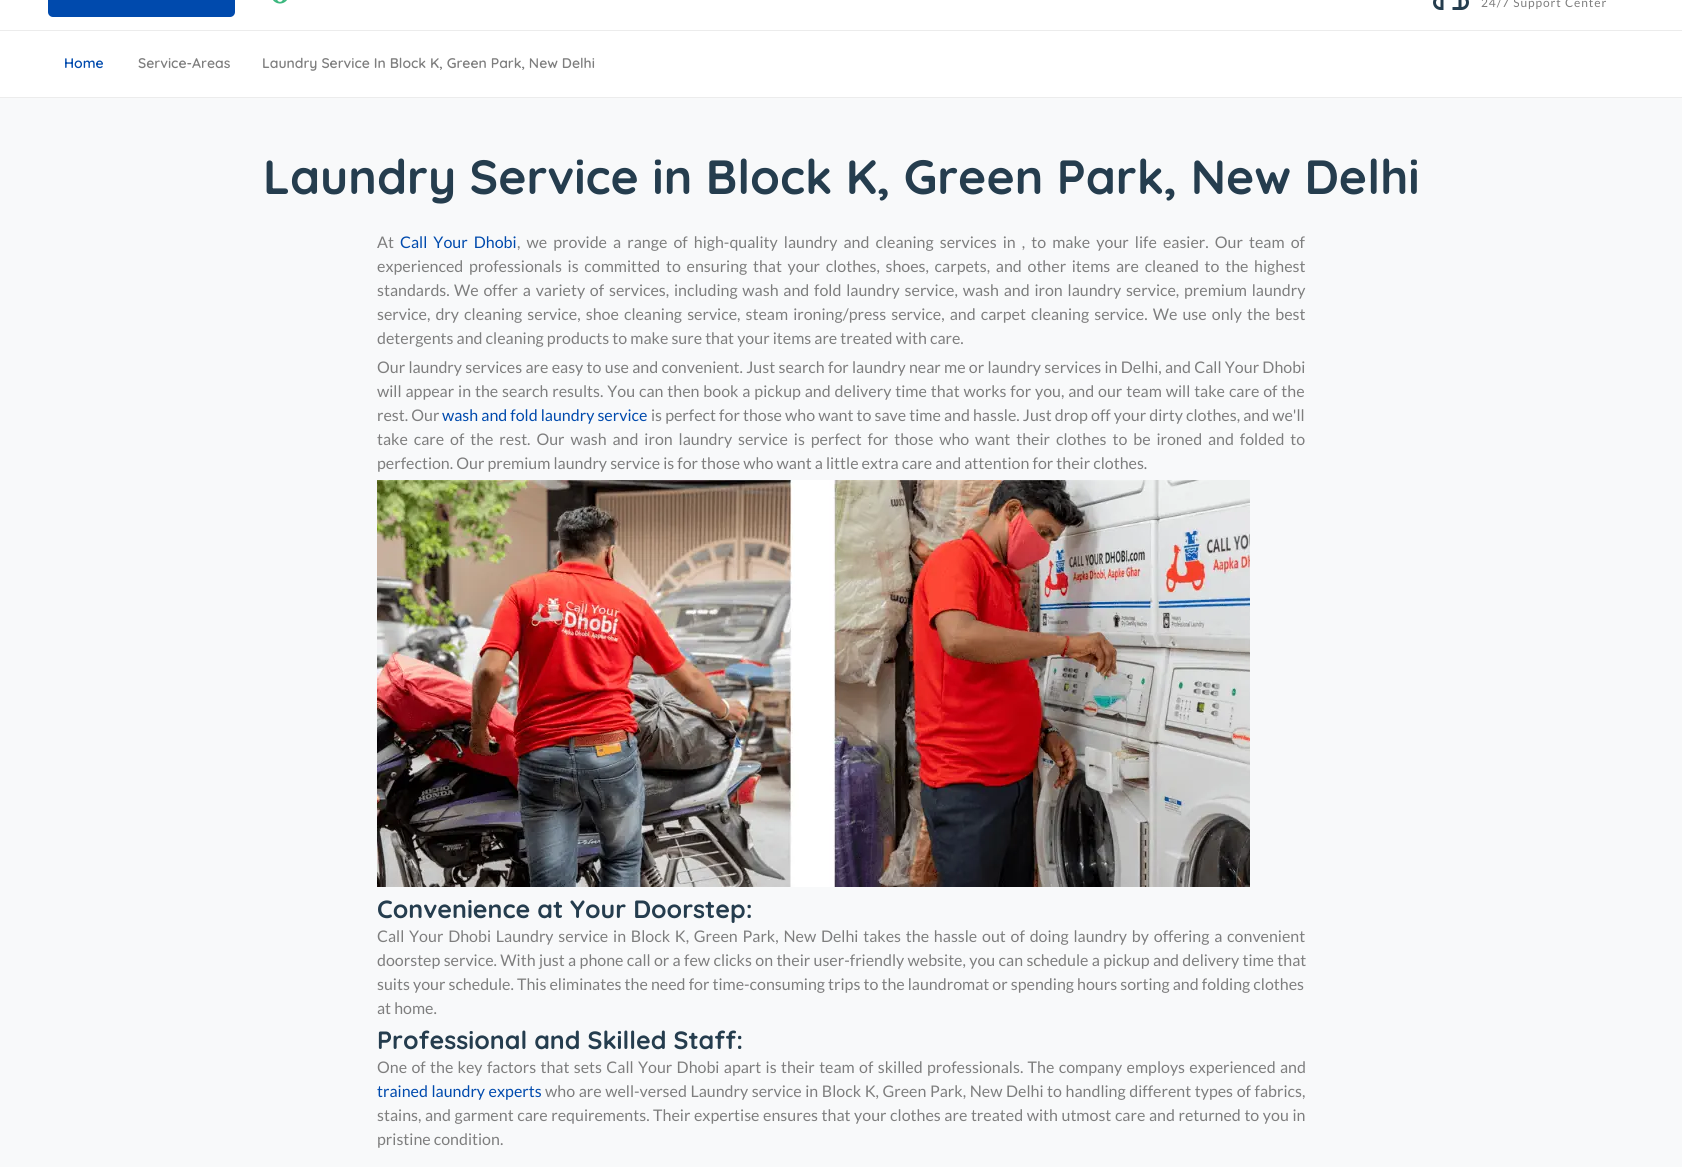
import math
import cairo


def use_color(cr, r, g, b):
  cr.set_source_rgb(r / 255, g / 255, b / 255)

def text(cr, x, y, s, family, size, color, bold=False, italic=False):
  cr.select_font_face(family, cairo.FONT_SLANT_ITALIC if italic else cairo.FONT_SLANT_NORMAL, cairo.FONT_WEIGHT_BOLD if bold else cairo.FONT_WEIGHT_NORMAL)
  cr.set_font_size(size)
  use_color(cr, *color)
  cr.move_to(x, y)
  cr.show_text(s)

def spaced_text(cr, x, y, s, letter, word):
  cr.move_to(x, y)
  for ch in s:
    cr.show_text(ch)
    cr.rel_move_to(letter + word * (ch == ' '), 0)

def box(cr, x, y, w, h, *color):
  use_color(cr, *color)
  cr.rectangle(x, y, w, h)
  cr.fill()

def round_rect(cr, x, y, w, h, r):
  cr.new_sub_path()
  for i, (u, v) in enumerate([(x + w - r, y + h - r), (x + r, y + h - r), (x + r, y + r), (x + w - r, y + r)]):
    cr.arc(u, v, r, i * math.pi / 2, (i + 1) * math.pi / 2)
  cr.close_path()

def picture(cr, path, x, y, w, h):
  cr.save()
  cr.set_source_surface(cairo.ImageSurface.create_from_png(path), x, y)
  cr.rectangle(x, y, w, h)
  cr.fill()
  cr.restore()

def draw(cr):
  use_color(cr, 255, 255, 255)
  cr.paint()
  box(cr, 0, 30, 1682, 1, 236, 236, 236)
  use_color(cr, 0, 74, 173)
  round_rect(cr, 48, -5, 187, 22, 5)
  cr.fill()
  picture(cr, "img_01.png", 273, 0, 14, 4)
  picture(cr, "img_02.png", 1433, 0, 36, 10)
  box(cr, 0, 98, 1682, 1069, 248, 249, 250)
  box(cr, 0, 97, 1682, 1, 236, 236, 236)
  picture(cr, "img_03.png", 377, 480, 873, 407)
  cr.select_font_face("Lato")
  cr.set_font_size(12)
  use_color(cr, 126, 126, 126)
  spaced_text(cr, 1481, 7, "24/7 Support Center", 0.9, 0)
  text(cr, 64, 68, "Home", "Quicksand SemiBold", 14, (0, 74, 173))
  text(cr, 138, 68, "Service-Areas", "Quicksand SemiBold", 14, (126, 126, 126))
  text(cr, 262, 68, "Laundry Service In Block K, Green Park, New Delhi", "Quicksand SemiBold", 14, (126, 126, 126))
  text(cr, 263, 194, "Laundry Service in Block K, Green Park, New Delhi", "Quicksand Light", 48, (37, 61, 78))
  text(cr, 377, 248, "At", "Lato", 16, (126, 126, 126))
  use_color(cr, 0, 74, 173)
  spaced_text(cr, 400, 248, "Call Your Dhobi", 0, 3)
  use_color(cr, 126, 126, 126)
  spaced_text(cr, 517, 248, ", we provide a range of high-quality laundry and cleaning services in , to make your life easier. Our team of", 0, 3)
  spaced_text(cr, 377, 272, "experienced professionals is committed to ensuring that your clothes, shoes, carpets, and other items are cleaned to the highest", 0, 2.6)
  text(cr, 377, 296, "standards.", "Lato", 16, (126, 126, 126))
  spaced_text(cr, 454, 296, "We offer a variety of services, including wash and fold laundry service, wash and iron laundry service, premium laundry", 0, 1.7)
  spaced_text(cr, 377, 320, "service, dry cleaning service, shoe cleaning service, steam ironing/press service, and carpet cleaning service. We use only the best", 0, 2)
  text(cr, 377, 344, "detergents and cleaning products to make sure that your items are treated with care.", "Lato", 16, (126, 126, 126))
  spaced_text(cr, 377, 373, "Our laundry services are easy to use and convenient. Just search for laundry near me or laundry services in Delhi, and Call Your Dhobi", 0, 0.2)
  spaced_text(cr, 377, 397, "will appear in the search results. You can then book a pickup and delivery time that works for you, and our team will take care of the", 0, 0.8)
  text(cr, 377, 421, "rest. Our", "Lato", 16, (126, 126, 126))
  text(cr, 442, 421, "wash and fold laundry service", "Lato", 16, (0, 74, 173))
  text(cr, 651, 421, "is perfect for those who want to save time and hassle. Just drop off your dirty clothes, and we'll", "Lato", 16, (126, 126, 126))
  spaced_text(cr, 377, 445, "take care of the rest. Our wash and iron laundry service is perfect for those who want their clothes to be ironed and folded to", 0, 2.8)
  text(cr, 377, 469, "perfection. Our premium laundry service is for those who want a little extra care and attention for their clothes.", "Lato", 16, (126, 126, 126))
  text(cr, 377, 918, "Convenience at Your Doorstep:", "Quicksand Light", 25, (37, 61, 78))
  cr.select_font_face("Lato")
  cr.set_font_size(16)
  use_color(cr, 126, 126, 126)
  spaced_text(cr, 377, 942, "Call Your Dhobi Laundry service in Block K, Green Park, New Delhi takes the hassle out of doing laundry by offering a convenient", 0, 1.7)
  spaced_text(cr, 377, 966, "doorstep service. With just a phone call or a few clicks on their user-friendly website, you can schedule a pickup and delivery time that", 0, 0.25)
  text(cr, 377, 990, "suits your schedule. This eliminates the need for time-consuming trips to the laundromat or spending hours sorting and folding clothes", "Lato", 16, (126, 126, 126))
  text(cr, 377, 1014, "at home.", "Lato", 16, (126, 126, 126))
  text(cr, 377, 1049, "Professional and Skilled Staff:", "Quicksand Light", 25, (37, 61, 78))
  cr.select_font_face("Lato")
  cr.set_font_size(16)
  use_color(cr, 126, 126, 126)
  spaced_text(cr, 377, 1073, "One of the key factors that sets Call Your Dhobi apart is their team of skilled professionals. The company employs experienced and", 0, 1.25)
  use_color(cr, 0, 74, 173)
  spaced_text(cr, 377, 1097, "trained laundry experts", 0, 0.5)
  use_color(cr, 126, 126, 126)
  spaced_text(cr, 545, 1097, "who are well-versed Laundry service in Block K, Green Park, New Delhi to handling different types of fabrics,", 0, 0.5)
  spaced_text(cr, 377, 1121, "stains, and garment care requirements. Their expertise ensures that your clothes are treated with utmost care and returned to you in", 0, 0.5)
  text(cr, 377, 1145, "pristine condition.", "Lato", 16, (126, 126, 126))


surface = cairo.ImageSurface(cairo.FORMAT_RGB24, 1682, 1167)
cr = cairo.Context(surface)
options = cairo.FontOptions()
options.set_hint_metrics(cairo.HINT_METRICS_OFF)
options.set_hint_style(cairo.HINT_STYLE_NONE)
cr.set_font_options(options)
cr.set_miter_limit(4)
draw(cr)
surface.write_to_png("out.png")
